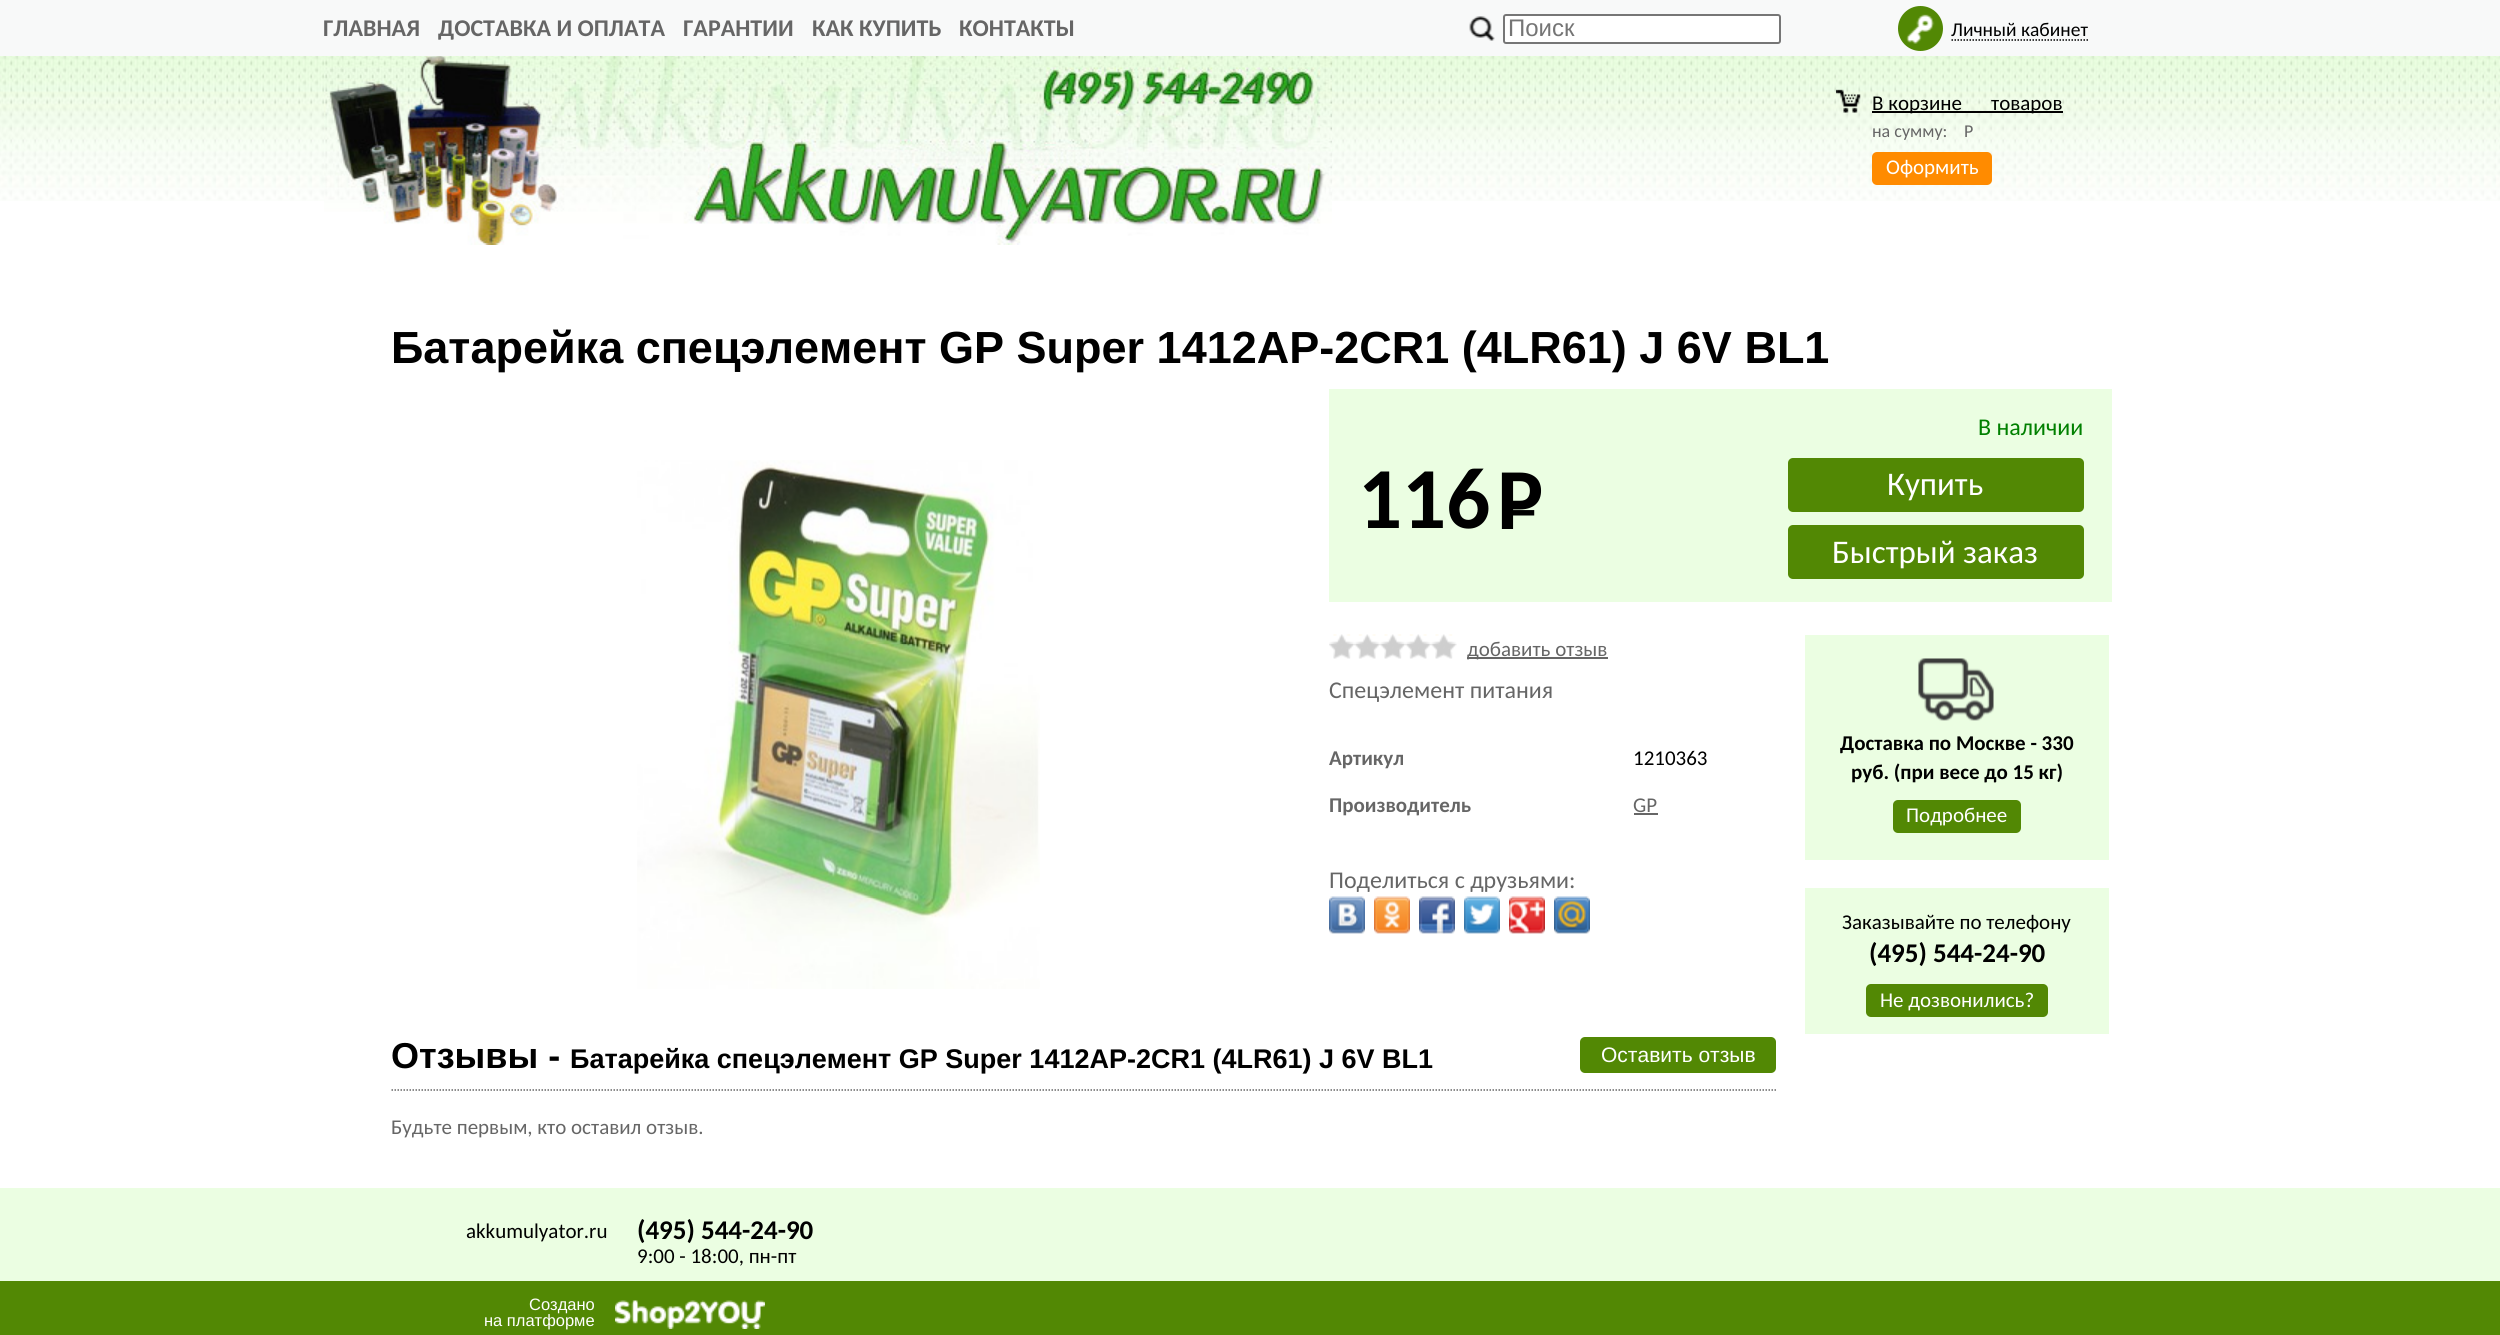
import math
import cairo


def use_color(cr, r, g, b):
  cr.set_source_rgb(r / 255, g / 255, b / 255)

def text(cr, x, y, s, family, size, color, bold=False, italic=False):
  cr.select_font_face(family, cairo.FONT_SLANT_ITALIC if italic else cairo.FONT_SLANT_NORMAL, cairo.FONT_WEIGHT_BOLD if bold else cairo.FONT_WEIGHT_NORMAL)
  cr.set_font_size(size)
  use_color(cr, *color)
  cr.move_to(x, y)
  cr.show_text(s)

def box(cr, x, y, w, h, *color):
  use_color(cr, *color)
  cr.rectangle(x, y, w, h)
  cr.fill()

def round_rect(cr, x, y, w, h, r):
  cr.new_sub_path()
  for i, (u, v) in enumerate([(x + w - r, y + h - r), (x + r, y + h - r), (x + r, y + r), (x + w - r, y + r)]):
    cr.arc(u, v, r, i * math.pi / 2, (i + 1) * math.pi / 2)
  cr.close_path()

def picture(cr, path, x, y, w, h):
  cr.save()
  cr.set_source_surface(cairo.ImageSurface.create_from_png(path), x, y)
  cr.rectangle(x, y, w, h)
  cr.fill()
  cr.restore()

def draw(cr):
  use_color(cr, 255, 255, 255)
  cr.paint()
  box(cr, 0, 0, 2500, 56, 248, 249, 249)
  picture(cr, "img_01.png", 1469, 16, 26, 25)
  use_color(cr, 255, 255, 255)
  round_rect(cr, 1504, 15, 276, 28, 2)
  cr.fill_preserve()
  use_color(cr, 118, 118, 118)
  cr.stroke()
  use_color(cr, 82, 136, 4)
  cr.arc(1920.5, 28.5, 22.5, 0, 2 * math.pi)
  cr.fill()
  picture(cr, "img_02.png", 1906, 14, 29, 30)
  cr.new_path()
  cr.move_to(1951.5, 40)
  cr.line_to(2088, 40)
  use_color(cr, 0, 0, 0)
  cr.set_line_width(1.5)
  cr.set_dash([1.5, 1.5])
  cr.stroke()
  picture(cr, "img_03.png", 0, 56, 2500, 145)
  picture(cr, "img_04.png", 323, 56, 1009, 189)
  picture(cr, "img_05.png", 1836, 89, 25, 24)
  box(cr, 1872, 111, 191, 2, 0, 0, 0)
  use_color(cr, 255, 139, 0)
  round_rect(cr, 1872, 152, 120, 33, 5)
  cr.fill()
  picture(cr, "img_06.png", 637, 460, 403, 529)
  box(cr, 1329, 389, 783, 213, 235, 254, 226)
  use_color(cr, 82, 136, 4)
  round_rect(cr, 1788, 458, 296, 54, 5)
  cr.fill()
  round_rect(cr, 1788, 525, 296, 54, 5)
  cr.fill()
  picture(cr, "img_07.png", 1329, 634, 128, 25)
  box(cr, 1467, 657, 141, 2, 102, 102, 102)
  box(cr, 1634, 813, 24, 2, 102, 102, 102)
  picture(cr, "img_08.png", 1329, 896, 36, 38)
  picture(cr, "img_09.png", 1374, 896, 36, 38)
  picture(cr, "img_10.png", 1419, 896, 36, 38)
  picture(cr, "img_11.png", 1464, 896, 36, 38)
  picture(cr, "img_12.png", 1509, 896, 36, 38)
  picture(cr, "img_13.png", 1554, 896, 36, 38)
  cr.new_path()
  cr.move_to(391.5, 1090)
  cr.line_to(1776, 1090)
  cr.stroke()
  use_color(cr, 82, 136, 4)
  round_rect(cr, 1580, 1037, 196, 36, 5)
  cr.fill()
  box(cr, 1805, 635, 304, 225, 235, 254, 226)
  picture(cr, "img_14.png", 1918, 658, 76, 63)
  use_color(cr, 82, 136, 4)
  round_rect(cr, 1893, 800, 128, 33, 5)
  cr.fill()
  box(cr, 1805, 888, 304, 146, 235, 254, 226)
  use_color(cr, 82, 136, 4)
  round_rect(cr, 1866, 984, 182, 33, 5)
  cr.fill()
  box(cr, 0, 1188, 2500, 93, 235, 254, 226)
  box(cr, 0, 1281, 2500, 54, 82, 136, 4)
  picture(cr, "img_15.png", 615, 1300, 150, 29)
  text(cr, 323, 36, "ГЛАВНАЯ", "Carlito", 24, (102, 102, 102), bold=True)
  text(cr, 438, 36, "ДОСТАВКА И ОПЛАТА", "Carlito", 24, (102, 102, 102), bold=True)
  text(cr, 683, 36, "ГАРАНТИИ", "Carlito", 24, (102, 102, 102), bold=True)
  text(cr, 812, 36, "КАК КУПИТЬ", "Carlito", 24, (102, 102, 102), bold=True)
  text(cr, 959, 36, "КОНТАКТЫ", "Carlito", 24, (102, 102, 102), bold=True)
  text(cr, 1508, 36, "Поиск", "Liberation Sans", 24, (117, 117, 117))
  text(cr, 1951, 36, "Личный кабинет", "Carlito", 19.5, (0, 0, 0))
  text(cr, 1872, 110, "В корзине", "Carlito", 21, (0, 0, 0))
  text(cr, 1991, 110, "товаров", "Carlito", 21, (0, 0, 0))
  text(cr, 1872, 137, "на сумму:", "Carlito", 18, (102, 102, 102))
  text(cr, 1964, 137, "Р", "Carlito", 18, (102, 102, 102))
  text(cr, 1886, 174, "Оформить", "Carlito", 21, (255, 255, 255))
  text(cr, 391, 363, "Батарейка спецэлемент GP Super 1412AP-2CR1 (4LR61) J 6V BL1", "Liberation Sans", 45, (0, 0, 0), bold=True)
  text(cr, 1978, 435, "В наличии", "Carlito", 24, (0, 128, 0))
  text(cr, 1358, 528, "116", "Carlito", 87, (0, 0, 0), bold=True)
  text(cr, 1497, 537, "–", "Carlito", 87, (0, 0, 0))
  text(cr, 1497, 529, "P", "Carlito", 87, (0, 0, 0), bold=True)
  text(cr, 1887, 495, "Купить", "Carlito", 33, (255, 255, 255))
  text(cr, 1832, 563, "Быстрый заказ", "Carlito", 33, (255, 255, 255))
  text(cr, 1467, 656, "добавить отзыв", "Carlito", 21, (102, 102, 102))
  text(cr, 1329, 698, "Спецэлемент питания", "Carlito", 24, (102, 102, 102))
  text(cr, 1329, 765, "Артикул", "Carlito", 21, (102, 102, 102), bold=True)
  text(cr, 1633, 765, "1210363", "Carlito", 21, (0, 0, 0))
  text(cr, 1329, 812, "Производитель", "Carlito", 21, (102, 102, 102), bold=True)
  text(cr, 1633, 812, "GP", "Carlito", 21, (102, 102, 102))
  text(cr, 1329, 888, "Поделиться с друзьями:", "Carlito", 24, (102, 102, 102))
  text(cr, 391, 1068, "Отзывы -", "Liberation Sans", 36, (0, 0, 0), bold=True)
  text(cr, 570, 1068, "Батарейка спецэлемент GP Super 1412AP-2CR1 (4LR61) J 6V BL1", "Liberation Sans", 27, (0, 0, 0), bold=True)
  text(cr, 1601, 1062, "Оставить отзыв", "Liberation Sans", 21, (255, 255, 255))
  text(cr, 391, 1134, "Будьте первым, кто оставил отзыв.", "Carlito", 21, (102, 102, 102))
  text(cr, 1840, 750, "Доставка по Москве - 330", "Carlito", 21, (0, 0, 0), bold=True)
  text(cr, 1851, 779, "руб. (при весе до 15 кг)", "Carlito", 21, (0, 0, 0), bold=True)
  text(cr, 1906, 822, "Подробнее", "Carlito", 21, (255, 255, 255))
  text(cr, 1842, 929, "Заказывайте по телефону", "Carlito", 21, (0, 0, 0))
  text(cr, 1869, 962, "(495) 544-24-90", "Carlito", 27, (0, 0, 0), bold=True)
  text(cr, 1880, 1007, "Не дозвонились?", "Carlito", 21, (255, 255, 255))
  text(cr, 466, 1238, "akkumulyator.ru", "Carlito", 21, (0, 0, 0))
  text(cr, 637, 1239, "(495) 544-24-90", "Carlito", 27, (0, 0, 0), bold=True)
  text(cr, 637, 1263, "9:00 - 18:00, пн-пт", "Carlito", 21, (0, 0, 0))
  text(cr, 529, 1310, "Создано", "Liberation Sans", 16.5, (255, 255, 255))
  text(cr, 484, 1326, "на платформе", "Liberation Sans", 16.5, (255, 255, 255))


surface = cairo.ImageSurface(cairo.FORMAT_RGB24, 2500, 1335)
cr = cairo.Context(surface)
options = cairo.FontOptions()
options.set_hint_metrics(cairo.HINT_METRICS_OFF)
options.set_hint_style(cairo.HINT_STYLE_NONE)
cr.set_font_options(options)
cr.set_miter_limit(4)
draw(cr)
surface.write_to_png("out.png")
